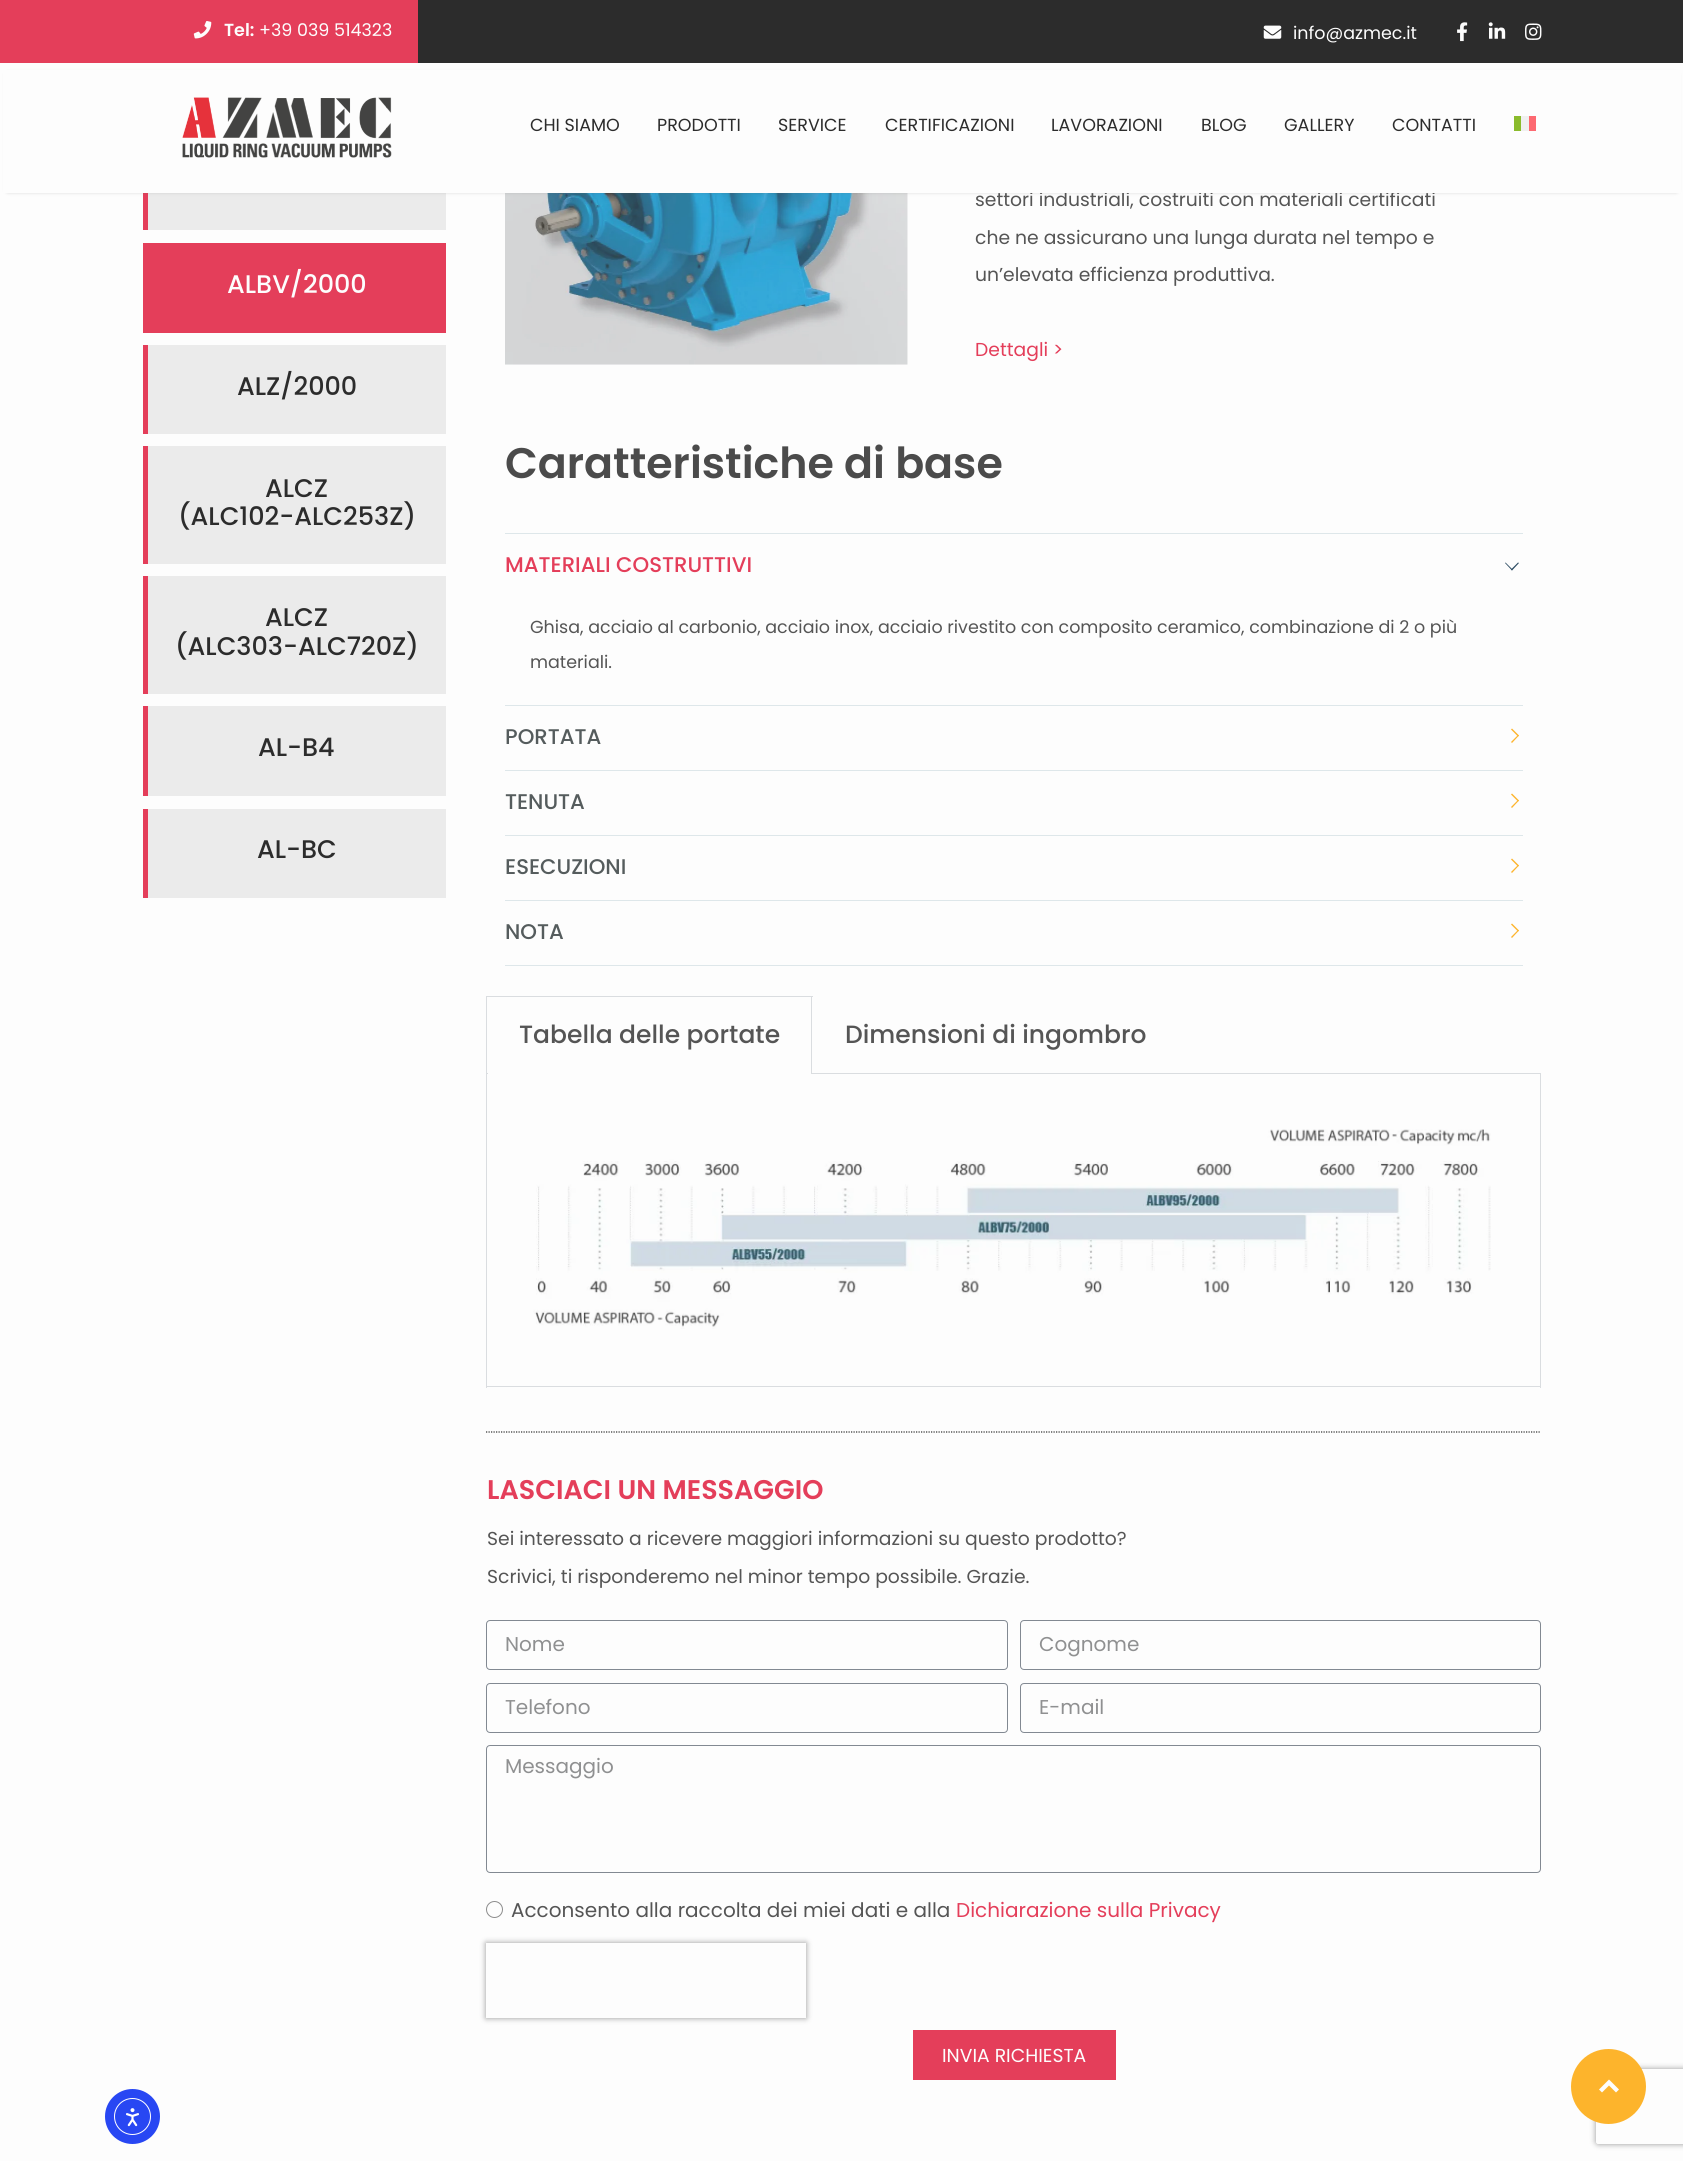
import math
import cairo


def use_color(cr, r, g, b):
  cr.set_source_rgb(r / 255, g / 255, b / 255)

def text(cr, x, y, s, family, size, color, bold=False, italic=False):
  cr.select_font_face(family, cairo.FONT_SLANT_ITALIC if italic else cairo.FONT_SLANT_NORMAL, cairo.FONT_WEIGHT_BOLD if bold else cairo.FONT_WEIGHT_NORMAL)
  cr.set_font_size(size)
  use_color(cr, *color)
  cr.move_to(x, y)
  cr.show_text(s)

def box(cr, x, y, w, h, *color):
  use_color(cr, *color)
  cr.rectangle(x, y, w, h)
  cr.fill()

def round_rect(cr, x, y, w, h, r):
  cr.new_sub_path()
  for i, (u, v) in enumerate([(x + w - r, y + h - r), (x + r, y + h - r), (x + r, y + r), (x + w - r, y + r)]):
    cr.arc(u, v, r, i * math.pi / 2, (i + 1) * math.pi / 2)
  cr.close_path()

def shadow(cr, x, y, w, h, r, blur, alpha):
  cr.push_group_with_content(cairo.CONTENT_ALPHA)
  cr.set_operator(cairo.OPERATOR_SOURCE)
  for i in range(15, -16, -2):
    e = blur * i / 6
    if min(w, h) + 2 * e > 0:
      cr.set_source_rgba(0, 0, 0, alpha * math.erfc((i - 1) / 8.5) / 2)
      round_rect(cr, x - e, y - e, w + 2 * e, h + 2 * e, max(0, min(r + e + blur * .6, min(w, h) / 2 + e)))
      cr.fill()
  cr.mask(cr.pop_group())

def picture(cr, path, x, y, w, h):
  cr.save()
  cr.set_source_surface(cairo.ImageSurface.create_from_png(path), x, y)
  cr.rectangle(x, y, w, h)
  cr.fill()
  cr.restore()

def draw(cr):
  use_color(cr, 253, 253, 253)
  cr.paint()
  box(cr, 418, 0, 1265, 63, 44, 44, 44)
  box(cr, 0, 0, 418, 63, 228, 62, 90)
  picture(cr, "img_01.png", 193, 21, 19, 18)
  picture(cr, "img_02.png", 1263, 25, 19, 14)
  picture(cr, "img_03.png", 1457, 22, 11, 20)
  picture(cr, "img_04.png", 1488, 22, 18, 17)
  picture(cr, "img_05.png", 1525, 23, 17, 17)
  box(cr, 148, 193, 298, 37, 235, 235, 235)
  box(cr, 143, 193, 5, 37, 228, 62, 90)
  picture(cr, "img_07.png", 505, 193, 403, 172)
  use_color(cr, 85, 85, 85)
  shadow(cr, 8, 75, 1668, 115, 0, 2.5, 1)
  box(cr, 143, 243, 303, 90, 228, 62, 90)
  box(cr, 148, 345, 298, 89, 235, 235, 235)
  box(cr, 143, 345, 5, 89, 228, 62, 90)
  box(cr, 148, 446, 298, 118, 235, 235, 235)
  box(cr, 143, 446, 5, 118, 228, 62, 90)
  box(cr, 148, 576, 298, 118, 235, 235, 235)
  box(cr, 143, 576, 5, 118, 228, 62, 90)
  box(cr, 148, 706, 298, 90, 235, 235, 235)
  box(cr, 143, 706, 5, 90, 228, 62, 90)
  box(cr, 148, 809, 298, 89, 235, 235, 235)
  box(cr, 143, 809, 5, 89, 228, 62, 90)
  box(cr, 505, 533, 1018, 1, 222, 231, 234)
  box(cr, 505, 705, 1018, 1, 222, 231, 234)
  use_color(cr, 44, 75, 98)
  cr.new_path()
  cr.move_to(1518, 562.5)
  cr.line_to(1519, 563)
  cr.line_to(1512, 570.5)
  cr.line_to(1511, 569.5)
  cr.close_path()
  cr.fill()
  cr.new_path()
  cr.move_to(1505.5, 562.5)
  cr.line_to(1512.5, 569.5)
  cr.line_to(1512, 570.5)
  cr.line_to(1505, 563)
  cr.close_path()
  cr.fill()
  box(cr, 505, 770, 1018, 1, 222, 231, 234)
  use_color(cr, 253, 180, 44)
  cr.new_path()
  cr.move_to(1511, 729.5)
  cr.line_to(1512, 728.5)
  cr.line_to(1519, 735.5)
  cr.line_to(1518, 736.5)
  cr.close_path()
  cr.fill()
  cr.new_path()
  cr.move_to(1511, 742)
  cr.line_to(1518, 735)
  cr.line_to(1519, 735.5)
  cr.line_to(1512, 743)
  cr.close_path()
  cr.fill()
  box(cr, 505, 835, 1018, 1, 222, 231, 234)
  use_color(cr, 253, 180, 44)
  cr.new_path()
  cr.move_to(1511, 794.5)
  cr.line_to(1512, 793.5)
  cr.line_to(1519, 800.5)
  cr.line_to(1518, 801.5)
  cr.close_path()
  cr.fill()
  cr.new_path()
  cr.move_to(1511, 807)
  cr.line_to(1518, 800)
  cr.line_to(1519, 800.5)
  cr.line_to(1512, 808)
  cr.close_path()
  cr.fill()
  box(cr, 505, 900, 1018, 1, 222, 231, 234)
  use_color(cr, 253, 180, 44)
  cr.new_path()
  cr.move_to(1511, 859.5)
  cr.line_to(1512, 858.5)
  cr.line_to(1519, 865.5)
  cr.line_to(1518, 866.5)
  cr.close_path()
  cr.fill()
  cr.new_path()
  cr.move_to(1511, 872)
  cr.line_to(1518, 865)
  cr.line_to(1519, 865.5)
  cr.line_to(1512, 873)
  cr.close_path()
  cr.fill()
  box(cr, 505, 965, 1018, 1, 222, 231, 234)
  use_color(cr, 253, 180, 44)
  cr.new_path()
  cr.move_to(1511, 924.5)
  cr.line_to(1512, 923.5)
  cr.line_to(1519, 930.5)
  cr.line_to(1518, 931.5)
  cr.close_path()
  cr.fill()
  cr.new_path()
  cr.move_to(1511, 937)
  cr.line_to(1518, 930)
  cr.line_to(1519, 930.5)
  cr.line_to(1512, 938)
  cr.close_path()
  cr.fill()
  box(cr, 486, 996, 327, 1, 218, 221, 224)
  box(cr, 811, 996, 1, 78, 218, 221, 224)
  box(cr, 486, 996, 1, 78, 218, 221, 224)
  box(cr, 486, 1073, 2, 1, 218, 221, 224)
  box(cr, 811, 1073, 730, 1, 218, 221, 224)
  box(cr, 1540, 1074, 1, 314, 218, 221, 224)
  box(cr, 486, 1386, 1055, 1, 218, 221, 224)
  box(cr, 486, 1074, 1, 314, 218, 221, 224)
  picture(cr, "img_08.png", 533, 1129, 958, 200)
  cr.new_path()
  cr.move_to(486, 1432)
  cr.line_to(1541, 1432)
  use_color(cr, 44, 44, 44)
  cr.set_line_width(1.2)
  cr.set_dash([1.25, 1.25])
  cr.stroke()
  round_rect(cr, 486.5, 1620.5, 521, 49, 3.5)
  use_color(cr, 130, 137, 146)
  cr.set_line_width(1)
  cr.set_dash([])
  cr.stroke()
  round_rect(cr, 1020.5, 1620.5, 520, 49, 3.5)
  cr.stroke()
  round_rect(cr, 486.5, 1683.5, 521, 49, 3.5)
  cr.stroke()
  round_rect(cr, 1020.5, 1683.5, 520, 49, 3.5)
  cr.stroke()
  round_rect(cr, 486.5, 1745.5, 1054, 127, 3.5)
  cr.stroke()
  cr.arc(494.5, 1909.5, 8, 0, 2 * math.pi)
  use_color(cr, 140, 140, 140)
  cr.stroke()
  cr.save()
  cr.set_fill_rule(cairo.FILL_RULE_EVEN_ODD)
  cr.new_path()
  cr.move_to(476, 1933)
  cr.line_to(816, 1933)
  cr.line_to(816, 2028)
  cr.line_to(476, 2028)
  cr.close_path()
  cr.move_to(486, 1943)
  cr.line_to(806, 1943)
  cr.line_to(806, 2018)
  cr.line_to(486, 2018)
  cr.close_path()
  cr.clip()
  use_color(cr, 149, 149, 149)
  shadow(cr, 486, 1943, 320, 75, 0, 3, 1)
  cr.restore()
  box(cr, 913, 2030, 203, 50, 228, 62, 90)
  cr.save()
  cr.set_fill_rule(cairo.FILL_RULE_EVEN_ODD)
  cr.new_path()
  cr.move_to(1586, 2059)
  cr.line_to(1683, 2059)
  cr.line_to(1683, 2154)
  cr.line_to(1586, 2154)
  cr.close_path()
  cr.move_to(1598.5, 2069)
  cr.line_to(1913.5, 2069)
  cr.curve_to(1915, 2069, 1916, 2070, 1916, 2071.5)
  cr.line_to(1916, 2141.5)
  cr.curve_to(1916, 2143, 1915, 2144, 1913.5, 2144)
  cr.line_to(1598.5, 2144)
  cr.curve_to(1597, 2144, 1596, 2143, 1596, 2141.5)
  cr.line_to(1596, 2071.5)
  cr.curve_to(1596, 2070, 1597, 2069, 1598.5, 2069)
  cr.close_path()
  cr.clip()
  use_color(cr, 149, 149, 149)
  shadow(cr, 1596, 2069, 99, 75, 2.5, 3, 1)
  cr.restore()
  use_color(cr, 253, 180, 44)
  cr.arc(1608.5, 2086.5, 37.5, 0, 2 * math.pi)
  cr.fill()
  use_color(cr, 253, 253, 253)
  cr.new_path()
  cr.move_to(1609, 2079.5)
  cr.line_to(1619, 2089.5)
  cr.line_to(1616, 2092.5)
  cr.line_to(1609, 2085.5)
  cr.line_to(1602, 2092.5)
  cr.line_to(1599, 2089.5)
  cr.close_path()
  cr.fill()
  use_color(cr, 40, 71, 243)
  cr.arc(132.5, 2116.5, 27.5, 0, 2 * math.pi)
  cr.fill()
  cr.arc(132.5, 2116.5, 18, 0, 2 * math.pi)
  use_color(cr, 255, 255, 255)
  cr.stroke()
  picture(cr, "img_09.png", 126, 2108, 13, 19)
  text(cr, 224, 36, "Tel:", "Poppins SemiBold", 17.5, (253, 253, 253))
  text(cr, 259, 36, "+39 039 514323", "Poppins", 17.5, (253, 253, 253))
  text(cr, 1293, 39, "info@azmec.it", "Poppins", 17.5, (253, 253, 253))
  text(cr, 227, 293, "ALBV/2000", "Poppins Medium", 25.5, (253, 253, 253))
  text(cr, 237, 395, "ALZ/2000", "Poppins Medium", 25.5, (44, 44, 44))
  text(cr, 265, 497, "ALCZ", "Poppins Medium", 25.5, (44, 44, 44))
  text(cr, 178, 525, "(ALC102-ALC253Z)", "Poppins Medium", 25.5, (44, 44, 44))
  text(cr, 265, 626, "ALCZ", "Poppins Medium", 25.5, (44, 44, 44))
  text(cr, 175, 655, "(ALC303-ALC720Z)", "Poppins Medium", 25.5, (44, 44, 44))
  text(cr, 258, 756, "AL-B4", "Poppins Medium", 25.5, (44, 44, 44))
  text(cr, 257, 858, "AL-BC", "Poppins Medium", 25.5, (44, 44, 44))
  text(cr, 975, 206, "settori industriali, costruiti con materiali certificati", "Poppins", 18.75, (85, 85, 85))
  box(cr, 3, 70, 1678, 123, 253, 253, 253)
  box(cr, 1514, 116, 7, 15, 138, 187, 44)
  box(cr, 1529, 116, 7, 15, 253, 105, 113)
  box(cr, 1521, 116, 8, 15, 240, 240, 240)
  text(cr, 1392, 131, "CONTATTI", "Poppins", 17.5, (44, 44, 44))
  text(cr, 1284, 131, "GALLERY", "Poppins", 17.5, (44, 44, 44))
  text(cr, 1201, 131, "BLOG", "Poppins", 17.5, (44, 44, 44))
  text(cr, 1051, 131, "LAVORAZIONI", "Poppins", 17.5, (44, 44, 44))
  text(cr, 885, 131, "CERTIFICAZIONI", "Poppins", 17.5, (44, 44, 44))
  text(cr, 778, 131, "SERVICE", "Poppins", 17.5, (44, 44, 44))
  text(cr, 657, 131, "PRODOTTI", "Poppins", 17.5, (44, 44, 44))
  text(cr, 530, 131, "CHI SIAMO", "Poppins", 17.5, (44, 44, 44))
  picture(cr, "img_06.png", 182, 97, 210, 61)
  text(cr, 975, 244, "che ne assicurano una lunga durata nel tempo e", "Poppins", 18.75, (85, 85, 85))
  text(cr, 975, 281, "un’elevata efficienza produttiva.", "Poppins", 18.75, (85, 85, 85))
  text(cr, 975, 356, "Dettagli >", "Poppins", 18.75, (228, 62, 90))
  text(cr, 505, 478, "Caratteristiche di base", "Poppins SemiBold", 42.75, (75, 75, 75))
  text(cr, 505, 572, "MATERIALI COSTRUTTIVI", "Poppins Medium", 21.25, (228, 62, 90))
  text(cr, 530, 633, "Ghisa, acciaio al carbonio, acciaio inox, acciaio rivestito con composito ceramico, combinazione di 2 o più", "Poppins", 17.5, (85, 85, 85))
  text(cr, 530, 668, "materiali.", "Poppins", 17.5, (85, 85, 85))
  text(cr, 505, 744, "PORTATA", "Poppins Medium", 21.25, (85, 92, 93))
  text(cr, 505, 809, "TENUTA", "Poppins Medium", 21.25, (85, 92, 93))
  text(cr, 505, 874, "ESECUZIONI", "Poppins Medium", 21.25, (85, 92, 93))
  text(cr, 505, 939, "NOTA", "Poppins Medium", 21.25, (85, 92, 93))
  text(cr, 519, 1043, "Tabella delle portate", "Poppins Medium", 25, (85, 85, 85))
  text(cr, 845, 1043, "Dimensioni di ingombro", "Poppins Medium", 25, (85, 85, 85))
  text(cr, 487, 1499, "LASCIACI UN MESSAGGIO", "Poppins SemiBold", 27, (228, 62, 90))
  text(cr, 487, 1545, "Sei interessato a ricevere maggiori informazioni su questo prodotto?", "Poppins", 18.75, (85, 85, 85))
  text(cr, 487, 1583, "Scrivici, ti risponderemo nel minor tempo possibile. Grazie.", "Poppins", 18.75, (85, 85, 85))
  text(cr, 505, 1651, "Nome", "Poppins", 20, (143, 144, 145))
  text(cr, 1039, 1651, "Cognome", "Poppins", 20, (143, 144, 145))
  text(cr, 505, 1714, "Telefono", "Poppins", 20, (143, 144, 145))
  text(cr, 1039, 1714, "E-mail", "Poppins", 20, (143, 144, 145))
  text(cr, 505, 1773, "Messaggio", "Poppins", 20, (143, 144, 145))
  text(cr, 511, 1917, "Acconsento alla raccolta dei miei dati e alla", "Poppins", 20, (85, 85, 85))
  text(cr, 956, 1917, "Dichiarazione sulla Privacy", "Poppins", 20, (228, 62, 90))
  text(cr, 942, 2062, "INVIA RICHIESTA", "Poppins", 18.75, (253, 253, 253))


surface = cairo.ImageSurface(cairo.FORMAT_RGB24, 1683, 2161)
cr = cairo.Context(surface)
options = cairo.FontOptions()
options.set_hint_metrics(cairo.HINT_METRICS_OFF)
options.set_hint_style(cairo.HINT_STYLE_NONE)
cr.set_font_options(options)
cr.set_miter_limit(4)
draw(cr)
surface.write_to_png("out.png")
